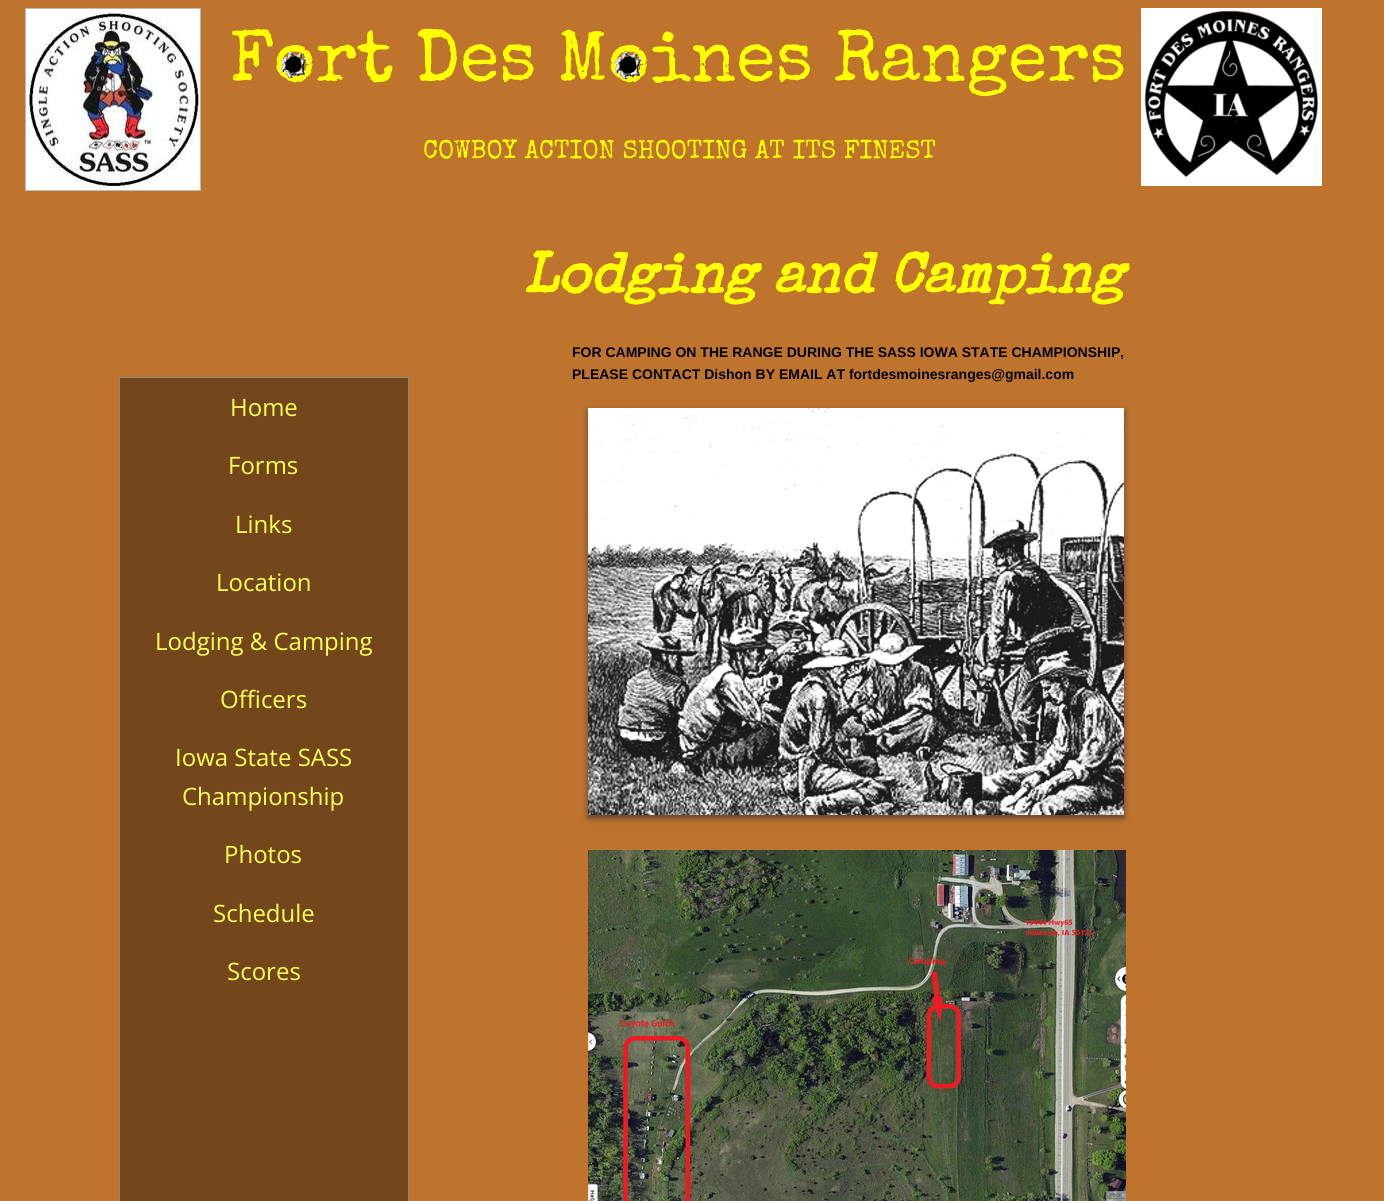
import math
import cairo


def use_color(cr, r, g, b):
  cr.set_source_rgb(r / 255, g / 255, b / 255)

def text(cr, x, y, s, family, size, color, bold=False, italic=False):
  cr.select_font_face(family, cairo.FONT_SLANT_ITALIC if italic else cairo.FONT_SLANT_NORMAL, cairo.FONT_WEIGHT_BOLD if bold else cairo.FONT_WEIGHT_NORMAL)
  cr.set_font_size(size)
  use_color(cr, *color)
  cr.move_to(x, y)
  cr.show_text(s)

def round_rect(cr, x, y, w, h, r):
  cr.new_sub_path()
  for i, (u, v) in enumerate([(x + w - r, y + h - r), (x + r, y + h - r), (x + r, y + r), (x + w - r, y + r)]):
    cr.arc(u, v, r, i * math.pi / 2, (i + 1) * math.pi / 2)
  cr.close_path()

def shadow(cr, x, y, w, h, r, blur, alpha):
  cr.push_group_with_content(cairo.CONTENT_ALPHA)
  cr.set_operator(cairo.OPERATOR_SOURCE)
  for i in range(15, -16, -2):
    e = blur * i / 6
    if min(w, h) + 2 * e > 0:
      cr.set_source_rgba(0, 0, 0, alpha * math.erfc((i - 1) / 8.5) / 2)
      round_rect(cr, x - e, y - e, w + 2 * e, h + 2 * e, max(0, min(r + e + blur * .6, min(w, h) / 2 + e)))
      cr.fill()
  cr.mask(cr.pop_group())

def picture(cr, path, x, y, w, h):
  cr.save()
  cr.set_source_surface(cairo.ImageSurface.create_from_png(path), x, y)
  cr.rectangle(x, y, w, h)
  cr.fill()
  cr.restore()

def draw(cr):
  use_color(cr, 191, 116, 45)
  cr.paint()
  cr.rectangle(25.5, 8.5, 175, 182)
  use_color(cr, 187, 187, 187)
  cr.set_line_width(1)
  cr.stroke()
  picture(cr, "img_01.png", 26, 9, 174, 181)
  picture(cr, "img_02.png", 1141, 8, 181, 178)
  use_color(cr, 115, 70, 27)
  cr.rectangle(119.5, 377.5, 289, 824)
  cr.fill_preserve()
  use_color(cr, 136, 136, 136)
  cr.stroke()
  use_color(cr, 50, 50, 50)
  shadow(cr, 588, 411, 536, 407, 0, 3.5, 0.75)
  picture(cr, "img_05.png", 588, 408, 536, 407)
  picture(cr, "img_06.png", 588, 850, 538, 351)
  text(cr, 230, 80, "Fort Des Moines Rangers", "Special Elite", 72, (255, 255, 0))
  picture(cr, "img_03.png", 281, 52, 26, 26)
  picture(cr, "img_04.png", 615, 52, 27, 27)
  text(cr, 423, 158, "COWBOY ACTION SHOOTING AT ITS FINEST", "Special Elite", 26, (255, 255, 0))
  text(cr, 523, 292, "Lodging and Camping", "Special Elite", 56, (255, 255, 0), bold=True, italic=True)
  text(cr, 572, 357, "FOR CAMPING ON THE RANGE DURING THE SASS IOWA STATE CHAMPIONSHIP,", "Liberation Sans", 14, (0, 0, 0), bold=True)
  text(cr, 572, 379, "PLEASE CONTACT Dishon BY EMAIL AT fortdesmoinesranges@gmail.com", "Liberation Sans", 14, (0, 0, 0), bold=True)
  text(cr, 230, 416, "Home", "Open Sans", 24, (255, 255, 86))
  text(cr, 228, 474, "Forms", "Open Sans", 24, (255, 255, 86))
  text(cr, 235, 533, "Links", "Open Sans", 24, (255, 255, 86))
  text(cr, 216, 591, "Location", "Open Sans", 24, (255, 255, 86))
  text(cr, 155, 650, "Lodging & Camping", "Open Sans", 24, (255, 255, 86))
  text(cr, 220, 708, "Officers", "Open Sans", 24, (255, 255, 86))
  text(cr, 175, 766, "Iowa State SASS", "Open Sans", 24, (255, 255, 86))
  text(cr, 182, 805, "Championship", "Open Sans", 24, (255, 255, 86))
  text(cr, 224, 863, "Photos", "Open Sans", 24, (255, 255, 86))
  text(cr, 213, 922, "Schedule", "Open Sans", 24, (255, 255, 86))
  text(cr, 227, 980, "Scores", "Open Sans", 24, (255, 255, 86))


surface = cairo.ImageSurface(cairo.FORMAT_RGB24, 1384, 1201)
cr = cairo.Context(surface)
options = cairo.FontOptions()
options.set_hint_metrics(cairo.HINT_METRICS_OFF)
options.set_hint_style(cairo.HINT_STYLE_NONE)
cr.set_font_options(options)
cr.set_miter_limit(4)
draw(cr)
surface.write_to_png("out.png")
